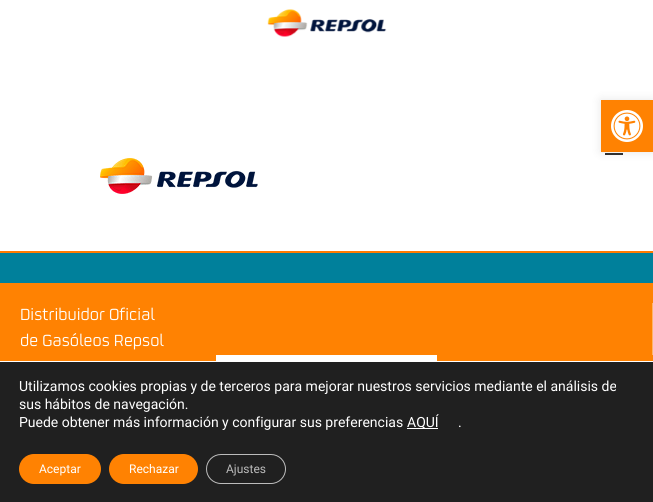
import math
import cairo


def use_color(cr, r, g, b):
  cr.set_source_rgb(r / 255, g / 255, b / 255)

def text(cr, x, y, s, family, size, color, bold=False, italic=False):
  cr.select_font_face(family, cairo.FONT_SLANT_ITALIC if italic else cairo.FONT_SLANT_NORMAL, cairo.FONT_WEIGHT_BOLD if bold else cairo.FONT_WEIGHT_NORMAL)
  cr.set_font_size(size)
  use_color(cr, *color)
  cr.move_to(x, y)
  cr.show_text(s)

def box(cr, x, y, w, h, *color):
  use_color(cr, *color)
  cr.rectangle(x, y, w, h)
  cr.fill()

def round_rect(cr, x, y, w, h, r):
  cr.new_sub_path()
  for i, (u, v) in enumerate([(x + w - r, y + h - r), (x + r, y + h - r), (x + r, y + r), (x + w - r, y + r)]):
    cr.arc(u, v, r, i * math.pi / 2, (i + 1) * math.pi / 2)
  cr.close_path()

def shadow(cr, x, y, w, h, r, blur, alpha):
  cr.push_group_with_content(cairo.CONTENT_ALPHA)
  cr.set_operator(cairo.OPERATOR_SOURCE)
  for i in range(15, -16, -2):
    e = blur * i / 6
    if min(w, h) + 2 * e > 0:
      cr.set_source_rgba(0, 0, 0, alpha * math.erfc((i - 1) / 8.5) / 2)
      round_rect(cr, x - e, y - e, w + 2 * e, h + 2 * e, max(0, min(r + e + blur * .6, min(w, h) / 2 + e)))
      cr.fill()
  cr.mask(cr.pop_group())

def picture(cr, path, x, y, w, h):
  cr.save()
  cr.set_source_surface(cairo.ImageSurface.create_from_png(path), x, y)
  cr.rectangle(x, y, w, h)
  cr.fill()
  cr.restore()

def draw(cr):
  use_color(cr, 255, 255, 255)
  cr.paint()
  picture(cr, "img_01.png", 267, 9, 120, 28)
  box(cr, 605, 153, 18, 2, 50, 50, 50)
  use_color(cr, 0, 0, 0)
  shadow(cr, 601, 100, 52, 52, 0, 5, 0.1)
  box(cr, 601, 100, 52, 52, 255, 130, 2)
  picture(cr, "img_02.png", 611, 110, 32, 32)
  picture(cr, "img_03.png", 100, 158, 158, 36)
  box(cr, 0, 251, 653, 2, 255, 123, 0)
  box(cr, 0, 283, 653, 78, 255, 130, 2)
  box(cr, 0, 253, 653, 30, 0, 128, 155)
  box(cr, 652, 303, 1, 52, 255, 180, 103)
  picture(cr, "img_04.png", 216, 355, 221, 6)
  box(cr, 0, 362, 653, 140, 32, 32, 32)
  box(cr, 407, 428, 31, 1, 255, 255, 255)
  use_color(cr, 255, 130, 2)
  round_rect(cr, 19, 454, 82, 30, 15)
  cr.fill()
  round_rect(cr, 109, 454, 89, 30, 15)
  cr.fill()
  round_rect(cr, 206.5, 454.5, 79, 29, 14.5)
  use_color(cr, 188, 188, 188)
  cr.set_line_width(1)
  cr.stroke()
  text(cr, 20, 320, "Distribuidor Oficial", "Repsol", 18, (255, 255, 255))
  text(cr, 20, 346, "de Gasóleos Repsol", "Repsol", 18, (255, 255, 255))
  text(cr, 19, 391, "Utilizamos cookies propias y de terceros para mejorar nuestros servicios mediante el análisis de", "Roboto", 14, (255, 255, 255))
  text(cr, 19, 409, "sus hábitos de navegación.", "Roboto", 14, (255, 255, 255))
  text(cr, 19, 427, "Puede obtener más información y configurar sus preferencias", "Roboto", 14, (255, 255, 255))
  text(cr, 407, 427, "AQUÍ", "Roboto", 14, (255, 255, 255))
  text(cr, 458, 427, ".", "Roboto", 14, (255, 255, 255))
  text(cr, 39, 473, "Aceptar", "Roboto", 12, (255, 255, 255))
  text(cr, 129, 473, "Rechazar", "Roboto", 12, (255, 255, 255))
  text(cr, 226, 473, "Ajustes", "Roboto", 12, (188, 188, 188))


surface = cairo.ImageSurface(cairo.FORMAT_RGB24, 653, 502)
cr = cairo.Context(surface)
options = cairo.FontOptions()
options.set_hint_metrics(cairo.HINT_METRICS_OFF)
options.set_hint_style(cairo.HINT_STYLE_NONE)
cr.set_font_options(options)
cr.set_miter_limit(4)
draw(cr)
surface.write_to_png("out.png")
